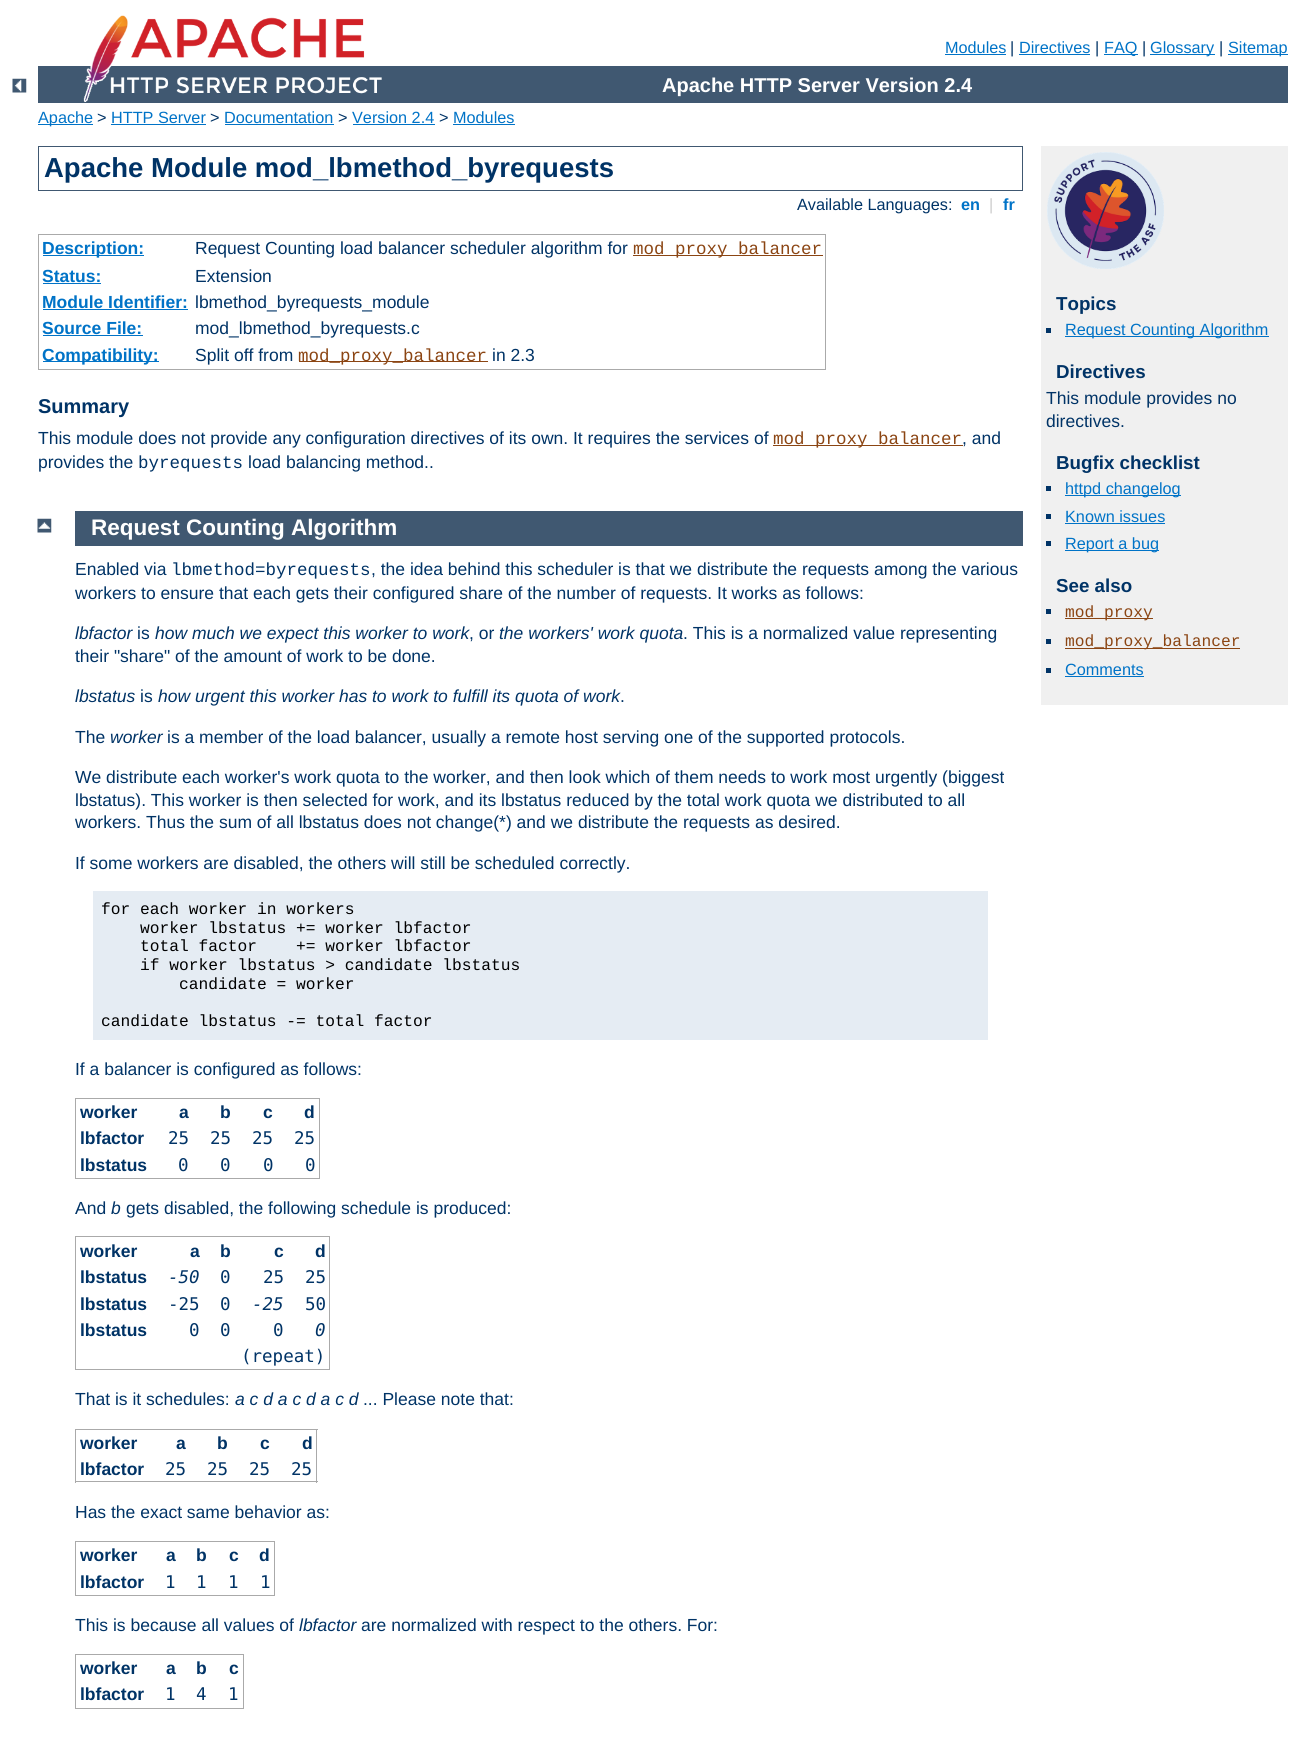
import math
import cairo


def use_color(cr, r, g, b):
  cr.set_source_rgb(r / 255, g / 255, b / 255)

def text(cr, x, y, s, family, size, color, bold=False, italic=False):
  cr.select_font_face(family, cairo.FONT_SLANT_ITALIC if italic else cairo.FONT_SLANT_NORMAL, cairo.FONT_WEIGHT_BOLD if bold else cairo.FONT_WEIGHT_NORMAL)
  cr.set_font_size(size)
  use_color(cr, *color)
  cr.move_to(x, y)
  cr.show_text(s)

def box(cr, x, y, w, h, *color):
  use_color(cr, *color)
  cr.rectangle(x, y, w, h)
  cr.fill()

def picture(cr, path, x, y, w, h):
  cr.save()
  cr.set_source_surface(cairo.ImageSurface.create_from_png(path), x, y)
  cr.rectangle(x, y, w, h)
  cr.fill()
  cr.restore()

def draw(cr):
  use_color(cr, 255, 255, 255)
  cr.paint()
  picture(cr, "img_01.png", 12, 78, 15, 15)
  box(cr, 38, 66, 1250, 37, 64, 88, 113)
  picture(cr, "img_02.png", 83, 15, 299, 87)
  box(cr, 945, 54, 61, 1, 0, 115, 199)
  box(cr, 1019, 54, 71, 1, 0, 115, 199)
  box(cr, 1104, 54, 34, 1, 0, 115, 199)
  box(cr, 1150, 54, 65, 1, 0, 115, 199)
  box(cr, 1228, 54, 60, 1, 0, 115, 199)
  box(cr, 38, 124, 55, 1, 0, 115, 199)
  box(cr, 111, 124, 95, 1, 0, 115, 199)
  box(cr, 225, 124, 109, 1, 0, 115, 199)
  box(cr, 353, 124, 82, 1, 0, 115, 199)
  box(cr, 453, 124, 62, 1, 0, 115, 199)
  cr.rectangle(38.5, 146.5, 984, 44)
  use_color(cr, 64, 88, 113)
  cr.set_line_width(1)
  cr.stroke()
  box(cr, 38, 234, 788, 1, 170, 170, 170)
  box(cr, 825, 234, 1, 136, 170, 170, 170)
  box(cr, 38, 369, 788, 1, 170, 170, 170)
  box(cr, 38, 234, 1, 136, 170, 170, 170)
  box(cr, 43, 255, 101, 1, 0, 115, 199)
  box(cr, 633, 255, 190, 1, 139, 69, 19)
  box(cr, 43, 283, 58, 1, 0, 115, 199)
  box(cr, 43, 309, 145, 1, 0, 115, 199)
  box(cr, 43, 335, 100, 1, 0, 115, 199)
  box(cr, 43, 361, 116, 1, 0, 115, 199)
  box(cr, 299, 361, 189, 1, 139, 69, 19)
  box(cr, 773, 445, 190, 1, 139, 69, 19)
  box(cr, 1041, 146, 247, 559, 240, 240, 240)
  picture(cr, "img_03.png", 1047, 152, 117, 117)
  box(cr, 1046, 328, 5, 5, 0, 51, 102)
  box(cr, 1065, 336, 204, 1, 0, 115, 199)
  box(cr, 1046, 486, 5, 5, 0, 51, 102)
  box(cr, 1065, 495, 116, 1, 0, 115, 199)
  box(cr, 1046, 514, 5, 5, 0, 51, 102)
  box(cr, 1065, 523, 100, 1, 0, 115, 199)
  box(cr, 1046, 541, 5, 5, 0, 51, 102)
  box(cr, 1065, 550, 94, 1, 0, 115, 199)
  box(cr, 1046, 609, 5, 5, 0, 51, 102)
  box(cr, 1065, 618, 88, 1, 139, 69, 19)
  box(cr, 1046, 639, 5, 5, 0, 51, 102)
  box(cr, 1065, 648, 175, 1, 139, 69, 19)
  box(cr, 1046, 668, 5, 5, 0, 51, 102)
  box(cr, 1065, 676, 79, 1, 0, 115, 199)
  picture(cr, "img_04.png", 37, 518, 15, 15)
  box(cr, 75, 511, 948, 35, 64, 88, 113)
  box(cr, 93, 891, 895, 149, 229, 236, 243)
  box(cr, 75, 1098, 245, 1, 170, 170, 170)
  box(cr, 319, 1098, 1, 81, 170, 170, 170)
  box(cr, 75, 1178, 245, 1, 170, 170, 170)
  box(cr, 75, 1098, 1, 81, 170, 170, 170)
  box(cr, 75, 1236, 255, 1, 170, 170, 170)
  box(cr, 329, 1236, 1, 134, 170, 170, 170)
  box(cr, 75, 1369, 255, 1, 170, 170, 170)
  box(cr, 75, 1236, 1, 134, 170, 170, 170)
  box(cr, 75, 1429, 243, 1, 170, 170, 170)
  box(cr, 316, 1429, 1, 54, 170, 170, 170)
  box(cr, 75, 1481, 243, 1, 170, 170, 170)
  box(cr, 75, 1429, 1, 54, 170, 170, 170)
  box(cr, 75, 1541, 200, 1, 170, 170, 170)
  box(cr, 274, 1541, 1, 55, 170, 170, 170)
  box(cr, 75, 1595, 200, 1, 170, 170, 170)
  box(cr, 75, 1541, 1, 55, 170, 170, 170)
  box(cr, 75, 1654, 169, 1, 170, 170, 170)
  box(cr, 243, 1654, 1, 55, 170, 170, 170)
  box(cr, 75, 1708, 169, 1, 170, 170, 170)
  box(cr, 75, 1654, 1, 55, 170, 170, 170)
  text(cr, 945, 53, "Modules", "Liberation Sans", 16.25, (0, 115, 199))
  text(cr, 1010, 53, "|", "Liberation Sans", 16.25, (0, 51, 102))
  text(cr, 1019, 53, "Directives", "Liberation Sans", 16.25, (0, 115, 199))
  text(cr, 1095, 53, "|", "Liberation Sans", 16.25, (0, 51, 102))
  text(cr, 1104, 53, "FAQ", "Liberation Sans", 16.25, (0, 115, 199))
  text(cr, 1142, 53, "|", "Liberation Sans", 16.25, (0, 51, 102))
  text(cr, 1150, 53, "Glossary", "Liberation Sans", 16.25, (0, 115, 199))
  text(cr, 1219, 53, "|", "Liberation Sans", 16.25, (0, 51, 102))
  text(cr, 1228, 53, "Sitemap", "Liberation Sans", 16.25, (0, 115, 199))
  text(cr, 662, 92, "Apache HTTP Server Version 2.4", "Liberation Sans", 20, (255, 255, 255), bold=True)
  text(cr, 38, 123, "Apache", "Liberation Sans", 16.25, (0, 115, 199))
  text(cr, 97, 123, ">", "Liberation Sans", 16.25, (0, 51, 102))
  text(cr, 111, 123, "HTTP Server", "Liberation Sans", 16.25, (0, 115, 199))
  text(cr, 210, 123, ">", "Liberation Sans", 16.25, (0, 51, 102))
  text(cr, 224, 123, "Documentation", "Liberation Sans", 16.25, (0, 115, 199))
  text(cr, 338, 123, ">", "Liberation Sans", 16.25, (0, 51, 102))
  text(cr, 352, 123, "Version 2.4", "Liberation Sans", 16.25, (0, 115, 199))
  text(cr, 439, 123, ">", "Liberation Sans", 16.25, (0, 51, 102))
  text(cr, 453, 123, "Modules", "Liberation Sans", 16.25, (0, 115, 199))
  text(cr, 44, 177, "Apache Module mod_lbmethod_byrequests", "Liberation Sans", 27.5, (0, 51, 102), bold=True)
  text(cr, 797, 210, "Available Languages:", "Liberation Sans", 16.25, (0, 51, 102))
  text(cr, 961, 210, "en", "Liberation Sans", 16.25, (0, 115, 199), bold=True)
  text(cr, 989, 210, "|", "Liberation Sans", 16.25, (204, 204, 204))
  text(cr, 1003, 210, "fr", "Liberation Sans", 16.25, (0, 115, 199), bold=True)
  text(cr, 42, 254, "Description:", "Liberation Sans", 17.5, (0, 115, 199), bold=True)
  text(cr, 195, 254, "Request Counting load balancer scheduler algorithm for", "Liberation Sans", 17.5, (0, 51, 102))
  text(cr, 633, 254, "mod_proxy_balancer", "Liberation Mono", 17.5, (139, 69, 19))
  text(cr, 42, 282, "Status:", "Liberation Sans", 17.5, (0, 115, 199), bold=True)
  text(cr, 195, 282, "Extension", "Liberation Sans", 17.5, (0, 51, 102))
  text(cr, 42, 308, "Module Identifier:", "Liberation Sans", 17.5, (0, 115, 199), bold=True)
  text(cr, 195, 308, "lbmethod_byrequests_module", "Liberation Sans", 17.5, (0, 51, 102))
  text(cr, 42, 334, "Source File:", "Liberation Sans", 17.5, (0, 115, 199), bold=True)
  text(cr, 195, 334, "mod_lbmethod_byrequests.c", "Liberation Sans", 17.5, (0, 51, 102))
  text(cr, 42, 361, "Compatibility:", "Liberation Sans", 17.5, (0, 115, 199), bold=True)
  text(cr, 195, 361, "Split off from", "Liberation Sans", 17.5, (0, 51, 102))
  text(cr, 298, 361, "mod_proxy_balancer", "Liberation Mono", 17.5, (139, 69, 19))
  text(cr, 492, 361, "in 2.3", "Liberation Sans", 17.5, (0, 51, 102))
  text(cr, 38, 413, "Summary", "Liberation Sans", 20, (0, 51, 102), bold=True)
  text(cr, 38, 444, "This module does not provide any configuration directives of its own. It requires the services of", "Liberation Sans", 17.5, (0, 51, 102))
  text(cr, 773, 444, "mod_proxy_balancer", "Liberation Mono", 17.5, (139, 69, 19))
  text(cr, 962, 444, ", and", "Liberation Sans", 17.5, (0, 51, 102))
  text(cr, 38, 468, "provides the", "Liberation Sans", 17.5, (0, 51, 102))
  text(cr, 138, 468, "byrequests", "Liberation Mono", 17.5, (0, 51, 102))
  text(cr, 248, 468, "load balancing method..", "Liberation Sans", 17.5, (0, 51, 102))
  text(cr, 1056, 310, "Topics", "Liberation Sans", 18.75, (0, 51, 102), bold=True)
  text(cr, 1065, 335, "Request Counting Algorithm", "Liberation Sans", 16.25, (0, 115, 199))
  text(cr, 1056, 378, "Directives", "Liberation Sans", 18.75, (0, 51, 102), bold=True)
  text(cr, 1046, 404, "This module provides no", "Liberation Sans", 17.5, (0, 51, 102))
  text(cr, 1046, 427, "directives.", "Liberation Sans", 17.5, (0, 51, 102))
  text(cr, 1056, 469, "Bugfix checklist", "Liberation Sans", 18.75, (0, 51, 102), bold=True)
  text(cr, 1065, 494, "httpd changelog", "Liberation Sans", 16.25, (0, 115, 199))
  text(cr, 1065, 522, "Known issues", "Liberation Sans", 16.25, (0, 115, 199))
  text(cr, 1065, 549, "Report a bug", "Liberation Sans", 16.25, (0, 115, 199))
  text(cr, 1056, 592, "See also", "Liberation Sans", 18.75, (0, 51, 102), bold=True)
  text(cr, 1065, 617, "mod_proxy", "Liberation Mono", 16.25, (139, 69, 19))
  text(cr, 1065, 646, "mod_proxy_balancer", "Liberation Mono", 16.25, (139, 69, 19))
  text(cr, 1065, 675, "Comments", "Liberation Sans", 16.25, (0, 115, 199))
  text(cr, 91, 535, "Request Counting Algorithm", "Liberation Sans", 22.5, (255, 255, 255), bold=True)
  text(cr, 75, 575, "Enabled via", "Liberation Sans", 17.5, (0, 51, 102))
  text(cr, 171, 575, "lbmethod=byrequests", "Liberation Mono", 17.5, (0, 51, 102))
  text(cr, 371, 575, ", the idea behind this scheduler is that we distribute the requests among the various", "Liberation Sans", 17.5, (0, 51, 102))
  text(cr, 75, 599, "workers to ensure that each gets their configured share of the number of requests. It works as follows:", "Liberation Sans", 17.5, (0, 51, 102))
  text(cr, 75, 639, "lbfactor", "Liberation Sans", 17.5, (0, 51, 102), italic=True)
  text(cr, 137, 639, "is", "Liberation Sans", 17.5, (0, 51, 102))
  text(cr, 155, 639, "how much we expect this worker to work", "Liberation Sans", 17.5, (0, 51, 102), italic=True)
  text(cr, 469, 639, ", or", "Liberation Sans", 17.5, (0, 51, 102))
  text(cr, 499, 639, "the workers' work quota", "Liberation Sans", 17.5, (0, 51, 102), italic=True)
  text(cr, 683, 639, ". This is a normalized value representing", "Liberation Sans", 17.5, (0, 51, 102))
  text(cr, 75, 662, "their \"share\" of the amount of work to be done.", "Liberation Sans", 17.5, (0, 51, 102))
  text(cr, 75, 702, "lbstatus", "Liberation Sans", 17.5, (0, 51, 102), italic=True)
  text(cr, 140, 702, "is", "Liberation Sans", 17.5, (0, 51, 102))
  text(cr, 158, 702, "how urgent this worker has to work to fulfill its quota of work", "Liberation Sans", 17.5, (0, 51, 102), italic=True)
  text(cr, 620, 702, ".", "Liberation Sans", 17.5, (0, 51, 102))
  text(cr, 75, 743, "The", "Liberation Sans", 17.5, (0, 51, 102))
  text(cr, 110, 743, "worker", "Liberation Sans", 17.5, (0, 51, 102), italic=True)
  text(cr, 167, 743, "is a member of the load balancer, usually a remote host serving one of the supported protocols.", "Liberation Sans", 17.5, (0, 51, 102))
  text(cr, 75, 783, "We distribute each worker's work quota to the worker, and then look which of them needs to work most urgently (biggest", "Liberation Sans", 17.5, (0, 51, 102))
  text(cr, 75, 806, "lbstatus). This worker is then selected for work, and its lbstatus reduced by the total work quota we distributed to all", "Liberation Sans", 17.5, (0, 51, 102))
  text(cr, 75, 828, "workers. Thus the sum of all lbstatus does not change(*) and we distribute the requests as desired.", "Liberation Sans", 17.5, (0, 51, 102))
  text(cr, 75, 869, "If some workers are disabled, the others will still be scheduled correctly.", "Liberation Sans", 17.5, (0, 51, 102))
  text(cr, 101, 914, "for each worker in workers", "Liberation Mono", 16.25, (0, 0, 0))
  text(cr, 140, 933, "worker lbstatus += worker lbfactor", "Liberation Mono", 16.25, (0, 0, 0))
  text(cr, 140, 951, "total factor    += worker lbfactor", "Liberation Mono", 16.25, (0, 0, 0))
  text(cr, 140, 970, "if worker lbstatus > candidate lbstatus", "Liberation Mono", 16.25, (0, 0, 0))
  text(cr, 179, 989, "candidate = worker", "Liberation Mono", 16.25, (0, 0, 0))
  text(cr, 101, 1026, "candidate lbstatus -= total factor", "Liberation Mono", 16.25, (0, 0, 0))
  text(cr, 75, 1075, "If a balancer is configured as follows:", "Liberation Sans", 17.5, (0, 51, 102))
  text(cr, 80, 1118, "worker", "Liberation Sans", 17.5, (0, 51, 102), bold=True)
  text(cr, 179, 1118, "a", "Liberation Sans", 17.5, (0, 51, 102), bold=True)
  text(cr, 220, 1118, "b", "Liberation Sans", 17.5, (0, 51, 102), bold=True)
  text(cr, 263, 1118, "c", "Liberation Sans", 17.5, (0, 51, 102), bold=True)
  text(cr, 304, 1118, "d", "Liberation Sans", 17.5, (0, 51, 102), bold=True)
  text(cr, 80, 1144, "lbfactor", "Liberation Sans", 17.5, (0, 51, 102), bold=True)
  text(cr, 168, 1144, "25", "DejaVu Sans Mono", 17.5, (0, 51, 102))
  text(cr, 210, 1144, "25", "DejaVu Sans Mono", 17.5, (0, 51, 102))
  text(cr, 252, 1144, "25", "DejaVu Sans Mono", 17.5, (0, 51, 102))
  text(cr, 294, 1144, "25", "DejaVu Sans Mono", 17.5, (0, 51, 102))
  text(cr, 80, 1171, "lbstatus", "Liberation Sans", 17.5, (0, 51, 102), bold=True)
  text(cr, 178, 1171, "0", "DejaVu Sans Mono", 17.5, (0, 51, 102))
  text(cr, 220, 1171, "0", "DejaVu Sans Mono", 17.5, (0, 51, 102))
  text(cr, 263, 1171, "0", "DejaVu Sans Mono", 17.5, (0, 51, 102))
  text(cr, 305, 1171, "0", "DejaVu Sans Mono", 17.5, (0, 51, 102))
  text(cr, 75, 1214, "And", "Liberation Sans", 17.5, (0, 51, 102))
  text(cr, 111, 1214, "b", "Liberation Sans", 17.5, (0, 51, 102), italic=True)
  text(cr, 126, 1214, "gets disabled, the following schedule is produced:", "Liberation Sans", 17.5, (0, 51, 102))
  text(cr, 80, 1257, "worker", "Liberation Sans", 17.5, (0, 51, 102), bold=True)
  text(cr, 190, 1257, "a", "Liberation Sans", 17.5, (0, 51, 102), bold=True)
  text(cr, 220, 1257, "b", "Liberation Sans", 17.5, (0, 51, 102), bold=True)
  text(cr, 274, 1257, "c", "Liberation Sans", 17.5, (0, 51, 102), bold=True)
  text(cr, 315, 1257, "d", "Liberation Sans", 17.5, (0, 51, 102), bold=True)
  text(cr, 80, 1283, "lbstatus", "Liberation Sans", 17.5, (0, 51, 102), bold=True)
  text(cr, 168, 1283, "-50", "DejaVu Sans Mono", 17.5, (0, 51, 102), italic=True)
  text(cr, 220, 1283, "0", "DejaVu Sans Mono", 17.5, (0, 51, 102))
  text(cr, 263, 1283, "25", "DejaVu Sans Mono", 17.5, (0, 51, 102))
  text(cr, 305, 1283, "25", "DejaVu Sans Mono", 17.5, (0, 51, 102))
  text(cr, 80, 1310, "lbstatus", "Liberation Sans", 17.5, (0, 51, 102), bold=True)
  text(cr, 168, 1310, "-25", "DejaVu Sans Mono", 17.5, (0, 51, 102))
  text(cr, 220, 1310, "0", "DejaVu Sans Mono", 17.5, (0, 51, 102))
  text(cr, 252, 1310, "-25", "DejaVu Sans Mono", 17.5, (0, 51, 102), italic=True)
  text(cr, 305, 1310, "50", "DejaVu Sans Mono", 17.5, (0, 51, 102))
  text(cr, 80, 1336, "lbstatus", "Liberation Sans", 17.5, (0, 51, 102), bold=True)
  text(cr, 189, 1336, "0", "DejaVu Sans Mono", 17.5, (0, 51, 102))
  text(cr, 220, 1336, "0", "DejaVu Sans Mono", 17.5, (0, 51, 102))
  text(cr, 273, 1336, "0", "DejaVu Sans Mono", 17.5, (0, 51, 102))
  text(cr, 315, 1336, "0", "DejaVu Sans Mono", 17.5, (0, 51, 102), italic=True)
  text(cr, 241, 1362, "(repeat)", "DejaVu Sans Mono", 17.5, (0, 51, 102))
  text(cr, 75, 1405, "That is it schedules:", "Liberation Sans", 17.5, (0, 51, 102))
  text(cr, 235, 1405, "a c d a c d a c d", "Liberation Sans", 17.5, (0, 51, 102), italic=True)
  text(cr, 363, 1405, "... Please note that:", "Liberation Sans", 17.5, (0, 51, 102))
  text(cr, 80, 1449, "worker", "Liberation Sans", 17.5, (0, 51, 102), bold=True)
  text(cr, 176, 1449, "a", "Liberation Sans", 17.5, (0, 51, 102), bold=True)
  text(cr, 217, 1449, "b", "Liberation Sans", 17.5, (0, 51, 102), bold=True)
  text(cr, 260, 1449, "c", "Liberation Sans", 17.5, (0, 51, 102), bold=True)
  text(cr, 302, 1449, "d", "Liberation Sans", 17.5, (0, 51, 102), bold=True)
  text(cr, 80, 1475, "lbfactor", "Liberation Sans", 17.5, (0, 51, 102), bold=True)
  text(cr, 165, 1475, "25", "DejaVu Sans Mono", 17.5, (0, 51, 102))
  text(cr, 207, 1475, "25", "DejaVu Sans Mono", 17.5, (0, 51, 102))
  text(cr, 249, 1475, "25", "DejaVu Sans Mono", 17.5, (0, 51, 102))
  text(cr, 291, 1475, "25", "DejaVu Sans Mono", 17.5, (0, 51, 102))
  text(cr, 75, 1518, "Has the exact same behavior as:", "Liberation Sans", 17.5, (0, 51, 102))
  text(cr, 80, 1561, "worker", "Liberation Sans", 17.5, (0, 51, 102), bold=True)
  text(cr, 166, 1561, "a", "Liberation Sans", 17.5, (0, 51, 102), bold=True)
  text(cr, 196, 1561, "b", "Liberation Sans", 17.5, (0, 51, 102), bold=True)
  text(cr, 229, 1561, "c", "Liberation Sans", 17.5, (0, 51, 102), bold=True)
  text(cr, 259, 1561, "d", "Liberation Sans", 17.5, (0, 51, 102), bold=True)
  text(cr, 80, 1588, "lbfactor", "Liberation Sans", 17.5, (0, 51, 102), bold=True)
  text(cr, 165, 1588, "1", "DejaVu Sans Mono", 17.5, (0, 51, 102))
  text(cr, 196, 1588, "1", "DejaVu Sans Mono", 17.5, (0, 51, 102))
  text(cr, 228, 1588, "1", "DejaVu Sans Mono", 17.5, (0, 51, 102))
  text(cr, 260, 1588, "1", "DejaVu Sans Mono", 17.5, (0, 51, 102))
  text(cr, 75, 1631, "This is because all values of", "Liberation Sans", 17.5, (0, 51, 102))
  text(cr, 299, 1631, "lbfactor", "Liberation Sans", 17.5, (0, 51, 102), italic=True)
  text(cr, 361, 1631, "are normalized with respect to the others. For:", "Liberation Sans", 17.5, (0, 51, 102))
  text(cr, 80, 1674, "worker", "Liberation Sans", 17.5, (0, 51, 102), bold=True)
  text(cr, 166, 1674, "a", "Liberation Sans", 17.5, (0, 51, 102), bold=True)
  text(cr, 196, 1674, "b", "Liberation Sans", 17.5, (0, 51, 102), bold=True)
  text(cr, 229, 1674, "c", "Liberation Sans", 17.5, (0, 51, 102), bold=True)
  text(cr, 80, 1700, "lbfactor", "Liberation Sans", 17.5, (0, 51, 102), bold=True)
  text(cr, 165, 1700, "1", "DejaVu Sans Mono", 17.5, (0, 51, 102))
  text(cr, 196, 1700, "4", "DejaVu Sans Mono", 17.5, (0, 51, 102))
  text(cr, 228, 1700, "1", "DejaVu Sans Mono", 17.5, (0, 51, 102))


surface = cairo.ImageSurface(cairo.FORMAT_RGB24, 1305, 1740)
cr = cairo.Context(surface)
options = cairo.FontOptions()
options.set_hint_metrics(cairo.HINT_METRICS_OFF)
options.set_hint_style(cairo.HINT_STYLE_NONE)
cr.set_font_options(options)
cr.set_miter_limit(4)
draw(cr)
surface.write_to_png("out.png")
